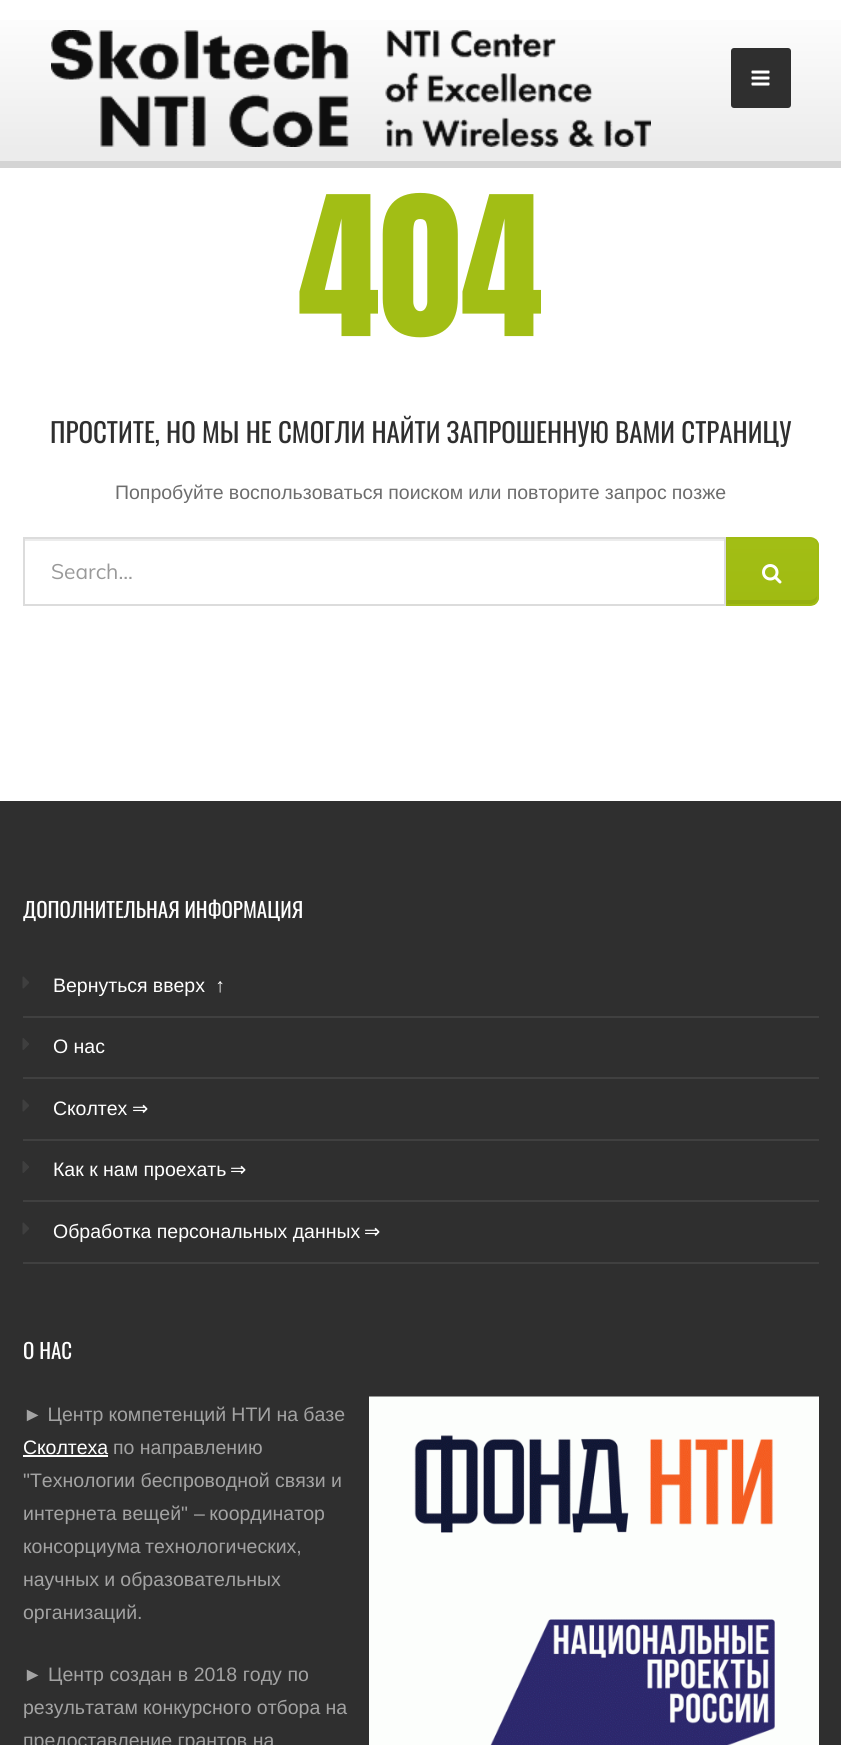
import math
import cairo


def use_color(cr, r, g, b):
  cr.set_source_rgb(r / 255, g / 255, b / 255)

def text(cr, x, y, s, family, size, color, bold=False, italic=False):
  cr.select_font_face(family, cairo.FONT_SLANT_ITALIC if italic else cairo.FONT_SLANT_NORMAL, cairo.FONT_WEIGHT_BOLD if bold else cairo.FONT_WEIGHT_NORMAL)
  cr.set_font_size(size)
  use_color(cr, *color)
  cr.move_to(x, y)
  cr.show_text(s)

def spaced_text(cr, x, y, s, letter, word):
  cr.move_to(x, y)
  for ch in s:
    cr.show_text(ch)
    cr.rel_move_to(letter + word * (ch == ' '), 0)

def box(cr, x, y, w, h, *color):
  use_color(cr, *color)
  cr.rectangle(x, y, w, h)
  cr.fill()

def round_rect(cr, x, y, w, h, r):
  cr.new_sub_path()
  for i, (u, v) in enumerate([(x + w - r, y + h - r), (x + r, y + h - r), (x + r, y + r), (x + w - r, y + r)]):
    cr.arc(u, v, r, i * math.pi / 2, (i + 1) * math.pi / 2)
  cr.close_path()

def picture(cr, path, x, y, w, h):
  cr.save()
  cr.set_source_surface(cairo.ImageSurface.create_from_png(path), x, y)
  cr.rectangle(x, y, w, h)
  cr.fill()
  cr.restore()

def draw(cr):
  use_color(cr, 255, 255, 255)
  cr.paint()
  box(cr, 0, 161, 841, 7, 212, 212, 212)
  box(cr, 0, 150, 841, 11, 236, 236, 236)
  gradient = cairo.LinearGradient(421, 0, 421, 150)
  gradient.add_color_stop_rgba(0, 1, 1, 1, 1)
  gradient.add_color_stop_rgba(1, 0.925, 0.925, 0.925, 1)
  cr.set_source(gradient)
  cr.rectangle(0, 20, 841, 130)
  cr.fill()
  picture(cr, "img_01.png", 51, 30, 600, 117)
  use_color(cr, 47, 47, 47)
  round_rect(cr, 731, 48, 60, 60, 3)
  cr.fill()
  picture(cr, "img_02.png", 751, 70, 19, 16)
  box(cr, 24, 539, 701, 2, 236, 236, 236)
  cr.save()
  cr.new_path()
  cr.move_to(725, 537)
  cr.line_to(810, 537)
  cr.curve_to(815, 537, 819, 541, 819, 546)
  cr.line_to(819, 597)
  cr.curve_to(819, 602, 815, 606, 810, 606)
  cr.line_to(725, 606)
  cr.close_path()
  cr.clip()
  gradient = cairo.LinearGradient(772, 539, 772, 605)
  gradient.add_color_stop_rgba(0, 0.635, 0.745, 0.082, 1)
  gradient.add_color_stop_rgba(1, 0.627, 0.733, 0.071, 1)
  cr.set_source(gradient)
  cr.rectangle(727, 539, 92, 66)
  cr.fill()
  cr.restore()
  use_color(cr, 150, 176, 17)
  cr.new_path()
  cr.move_to(726, 600)
  cr.line_to(726, 605)
  cr.line_to(810, 605)
  cr.curve_to(814, 605, 818, 601, 818, 597)
  cr.line_to(818, 592)
  cr.curve_to(818, 597, 814, 600, 810, 600)
  cr.close_path()
  cr.fill()
  cr.new_path()
  cr.move_to(726, 538)
  cr.line_to(810, 538)
  cr.curve_to(814.5, 538, 818, 541.5, 818, 546)
  cr.line_to(818, 597)
  cr.curve_to(818, 601.5, 814.5, 605, 810, 605)
  cr.line_to(726, 605)
  cr.close_path()
  use_color(cr, 160, 187, 18)
  cr.stroke()
  cr.rectangle(24, 538, 701, 67)
  use_color(cr, 220, 220, 220)
  cr.stroke()
  picture(cr, "img_03.png", 762, 564, 20, 20)
  box(cr, 0, 801, 841, 944, 47, 47, 47)
  box(cr, 23, 1016, 796, 2, 64, 64, 64)
  picture(cr, "img_04.png", 22, 976, 7, 13)
  box(cr, 23, 1077, 796, 2, 64, 64, 64)
  picture(cr, "img_05.png", 22, 1038, 7, 12)
  box(cr, 23, 1139, 796, 2, 64, 64, 64)
  picture(cr, "img_04.png", 22, 1099, 7, 13)
  box(cr, 23, 1200, 796, 2, 64, 64, 64)
  picture(cr, "img_05.png", 22, 1161, 7, 12)
  box(cr, 23, 1262, 796, 2, 64, 64, 64)
  picture(cr, "img_04.png", 22, 1222, 7, 13)
  box(cr, 23, 1455, 85, 2, 255, 255, 255)
  picture(cr, "img_06.png", 369, 1396, 450, 349)
  text(cr, 298, 336, "404", "Anton", 165, (162, 190, 21))
  text(cr, 50, 443, "ПРОСТИТЕ, НО МЫ НЕ СМОГЛИ НАЙТИ ЗАПРОШЕННУЮ ВАМИ СТРАНИЦУ", "Oswald", 27, (47, 47, 47))
  cr.select_font_face("Liberation Sans")
  cr.set_font_size(19.5)
  use_color(cr, 109, 109, 109)
  spaced_text(cr, 115, 499, "Попробуйте воспользоваться поиском или повторите запрос позже", 0, -0.25)
  text(cr, 51, 579, "Search...", "Muli", 21, (153, 153, 153))
  text(cr, 23, 918, "ДОПОЛНИТЕЛЬНАЯ ИНФОРМАЦИЯ", "Oswald", 21, (255, 255, 255))
  cr.select_font_face("Liberation Sans")
  cr.set_font_size(19.5)
  spaced_text(cr, 53, 992, "Вернуться вверх  ↑", 0, -0.25)
  text(cr, 53, 1053, "О нас", "Liberation Sans", 19.5, (255, 255, 255))
  text(cr, 53, 1115, "Сколтех", "Liberation Sans", 19.5, (255, 255, 255))
  text(cr, 132, 1115, "⇒", "DejaVu Sans", 19.5, (255, 255, 255))
  text(cr, 53, 1176, "Как к нам проехать", "Liberation Sans", 19.5, (255, 255, 255))
  text(cr, 230, 1176, "⇒", "DejaVu Sans", 19.5, (255, 255, 255))
  text(cr, 53, 1238, "Обработка персональных данных", "Liberation Sans", 19.5, (255, 255, 255))
  text(cr, 364, 1238, "⇒", "DejaVu Sans", 19.5, (255, 255, 255))
  text(cr, 23, 1359, "О НАС", "Oswald", 21, (255, 255, 255))
  cr.select_font_face("Liberation Sans")
  cr.set_font_size(19.5)
  use_color(cr, 163, 163, 163)
  spaced_text(cr, 23, 1421, "► Центр компетенций НТИ на базе", 0, -0.25)
  text(cr, 23, 1454, "Сколтеха", "Liberation Sans", 19.5, (255, 255, 255))
  text(cr, 113, 1454, "по направлению", "Liberation Sans", 19.5, (163, 163, 163))
  text(cr, 23, 1487, "\"Технологии беспроводной связи и", "Liberation Sans", 19.5, (163, 163, 163))
  text(cr, 23, 1520, "интернета вещей\"", "Liberation Sans", 19.5, (163, 163, 163))
  spaced_text(cr, 194, 1520, "– координатор", 0, -1)
  spaced_text(cr, 23, 1553, "консорциума технологических,", 0, -1)
  spaced_text(cr, 23, 1586, "научных и образовательных", 0, -0.25)
  text(cr, 23, 1619, "организаций.", "Liberation Sans", 19.5, (163, 163, 163))
  spaced_text(cr, 23, 1681, "► Центр создан в 2018 году по", 0, 0.25)
  spaced_text(cr, 23, 1714, "результатам конкурсного отбора на", 0, -0.25)
  text(cr, 23, 1747, "предоставление грантов на", "Liberation Sans", 19.5, (163, 163, 163))


surface = cairo.ImageSurface(cairo.FORMAT_RGB24, 841, 1745)
cr = cairo.Context(surface)
options = cairo.FontOptions()
options.set_hint_metrics(cairo.HINT_METRICS_OFF)
options.set_hint_style(cairo.HINT_STYLE_NONE)
cr.set_font_options(options)
cr.set_miter_limit(4)
draw(cr)
surface.write_to_png("out.png")
